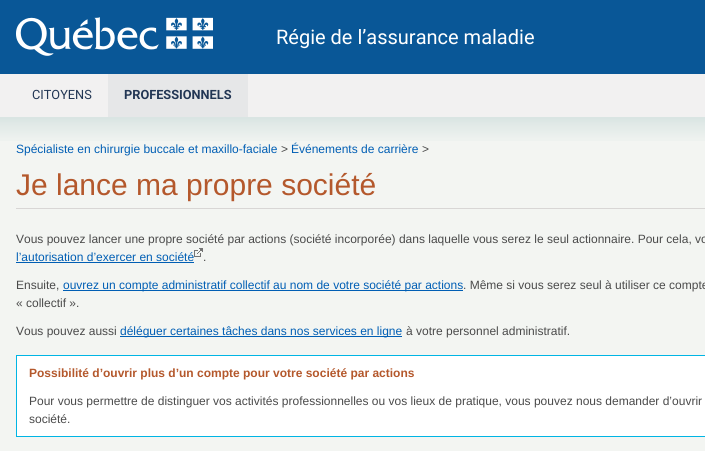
import math
import cairo


def use_color(cr, r, g, b):
  cr.set_source_rgb(r / 255, g / 255, b / 255)

def text(cr, x, y, s, family, size, color, bold=False, italic=False):
  cr.select_font_face(family, cairo.FONT_SLANT_ITALIC if italic else cairo.FONT_SLANT_NORMAL, cairo.FONT_WEIGHT_BOLD if bold else cairo.FONT_WEIGHT_NORMAL)
  cr.set_font_size(size)
  use_color(cr, *color)
  cr.move_to(x, y)
  cr.show_text(s)

def box(cr, x, y, w, h, *color):
  use_color(cr, *color)
  cr.rectangle(x, y, w, h)
  cr.fill()

def picture(cr, path, x, y, w, h):
  cr.save()
  cr.set_source_surface(cairo.ImageSurface.create_from_png(path), x, y)
  cr.rectangle(x, y, w, h)
  cr.fill()
  cr.restore()

def draw(cr):
  use_color(cr, 9, 87, 151)
  cr.paint()
  picture(cr, "img_01.png", 16, 17, 197, 39)
  box(cr, 0, 74, 705, 43, 242, 241, 241)
  box(cr, 108, 74, 140, 43, 230, 231, 232)
  box(cr, 0, 141, 705, 310, 243, 245, 242)
  picture(cr, "img_02.png", 0, 117, 705, 24)
  box(cr, 16, 208, 689, 1, 216, 214, 213)
  box(cr, 16, 262, 178, 1, 0, 94, 180)
  picture(cr, "img_03.png", 194, 248, 9, 9)
  box(cr, 63, 290, 400, 1, 0, 94, 180)
  box(cr, 120, 336, 282, 1, 0, 94, 180)
  use_color(cr, 255, 255, 255)
  cr.rectangle(16.5, 355.5, 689, 81)
  cr.fill_preserve()
  use_color(cr, 0, 181, 228)
  cr.set_line_width(1)
  cr.stroke()
  text(cr, 276, 44, "Régie de l’assurance maladie", "Roboto", 20, (255, 255, 255))
  text(cr, 32, 99, "CITOYENS", "Roboto", 12.75, (34, 54, 84))
  text(cr, 124, 99, "PROFESSIONNELS", "Roboto", 12.75, (34, 54, 84), bold=True)
  text(cr, 16, 153, "Spécialiste en chirurgie buccale et maxillo-faciale", "Liberation Sans", 12, (0, 94, 180))
  text(cr, 281, 153, ">", "Liberation Sans", 12, (74, 74, 74))
  text(cr, 291, 153, "Événements de carrière", "Liberation Sans", 12, (0, 94, 180))
  text(cr, 422, 153, ">", "Liberation Sans", 12, (74, 74, 74))
  text(cr, 16, 195, "Je lance ma propre société", "Liberation Sans", 30, (180, 88, 44))
  text(cr, 16, 243, "Vous pouvez lancer une propre société par actions (société incorporée) dans laquelle vous serez le seul actionnaire. Pour cela, vo", "Liberation Sans", 12, (74, 74, 74))
  text(cr, 16, 261, "l’autorisation d’exercer en société", "Liberation Sans", 12, (0, 94, 180))
  text(cr, 203, 261, ".", "Liberation Sans", 12, (74, 74, 74))
  text(cr, 16, 289, "Ensuite,", "Liberation Sans", 12, (74, 74, 74))
  text(cr, 63, 289, "ouvrez un compte administratif collectif au nom de votre société par actions", "Liberation Sans", 12, (0, 94, 180))
  text(cr, 463, 289, ". Même si vous serez seul à utiliser ce compte", "Liberation Sans", 12, (74, 74, 74))
  text(cr, 16, 307, "« collectif ».", "Liberation Sans", 12, (74, 74, 74))
  text(cr, 16, 335, "Vous pouvez aussi", "Liberation Sans", 12, (74, 74, 74))
  text(cr, 120, 335, "déléguer certaines tâches dans nos services en ligne", "Liberation Sans", 12, (0, 94, 180))
  text(cr, 406, 335, "à votre personnel administratif.", "Liberation Sans", 12, (74, 74, 74))
  text(cr, 29, 377, "Possibilité d’ouvrir plus d’un compte pour votre société par actions", "Liberation Sans", 12, (180, 88, 44), bold=True)
  text(cr, 29, 405, "Pour vous permettre de distinguer vos activités professionnelles ou vos lieux de pratique, vous pouvez nous demander d’ouvrir", "Liberation Sans", 12, (74, 74, 74))
  text(cr, 29, 423, "société.", "Liberation Sans", 12, (74, 74, 74))


surface = cairo.ImageSurface(cairo.FORMAT_RGB24, 705, 451)
cr = cairo.Context(surface)
options = cairo.FontOptions()
options.set_hint_metrics(cairo.HINT_METRICS_OFF)
options.set_hint_style(cairo.HINT_STYLE_NONE)
cr.set_font_options(options)
cr.set_miter_limit(4)
draw(cr)
surface.write_to_png("out.png")
